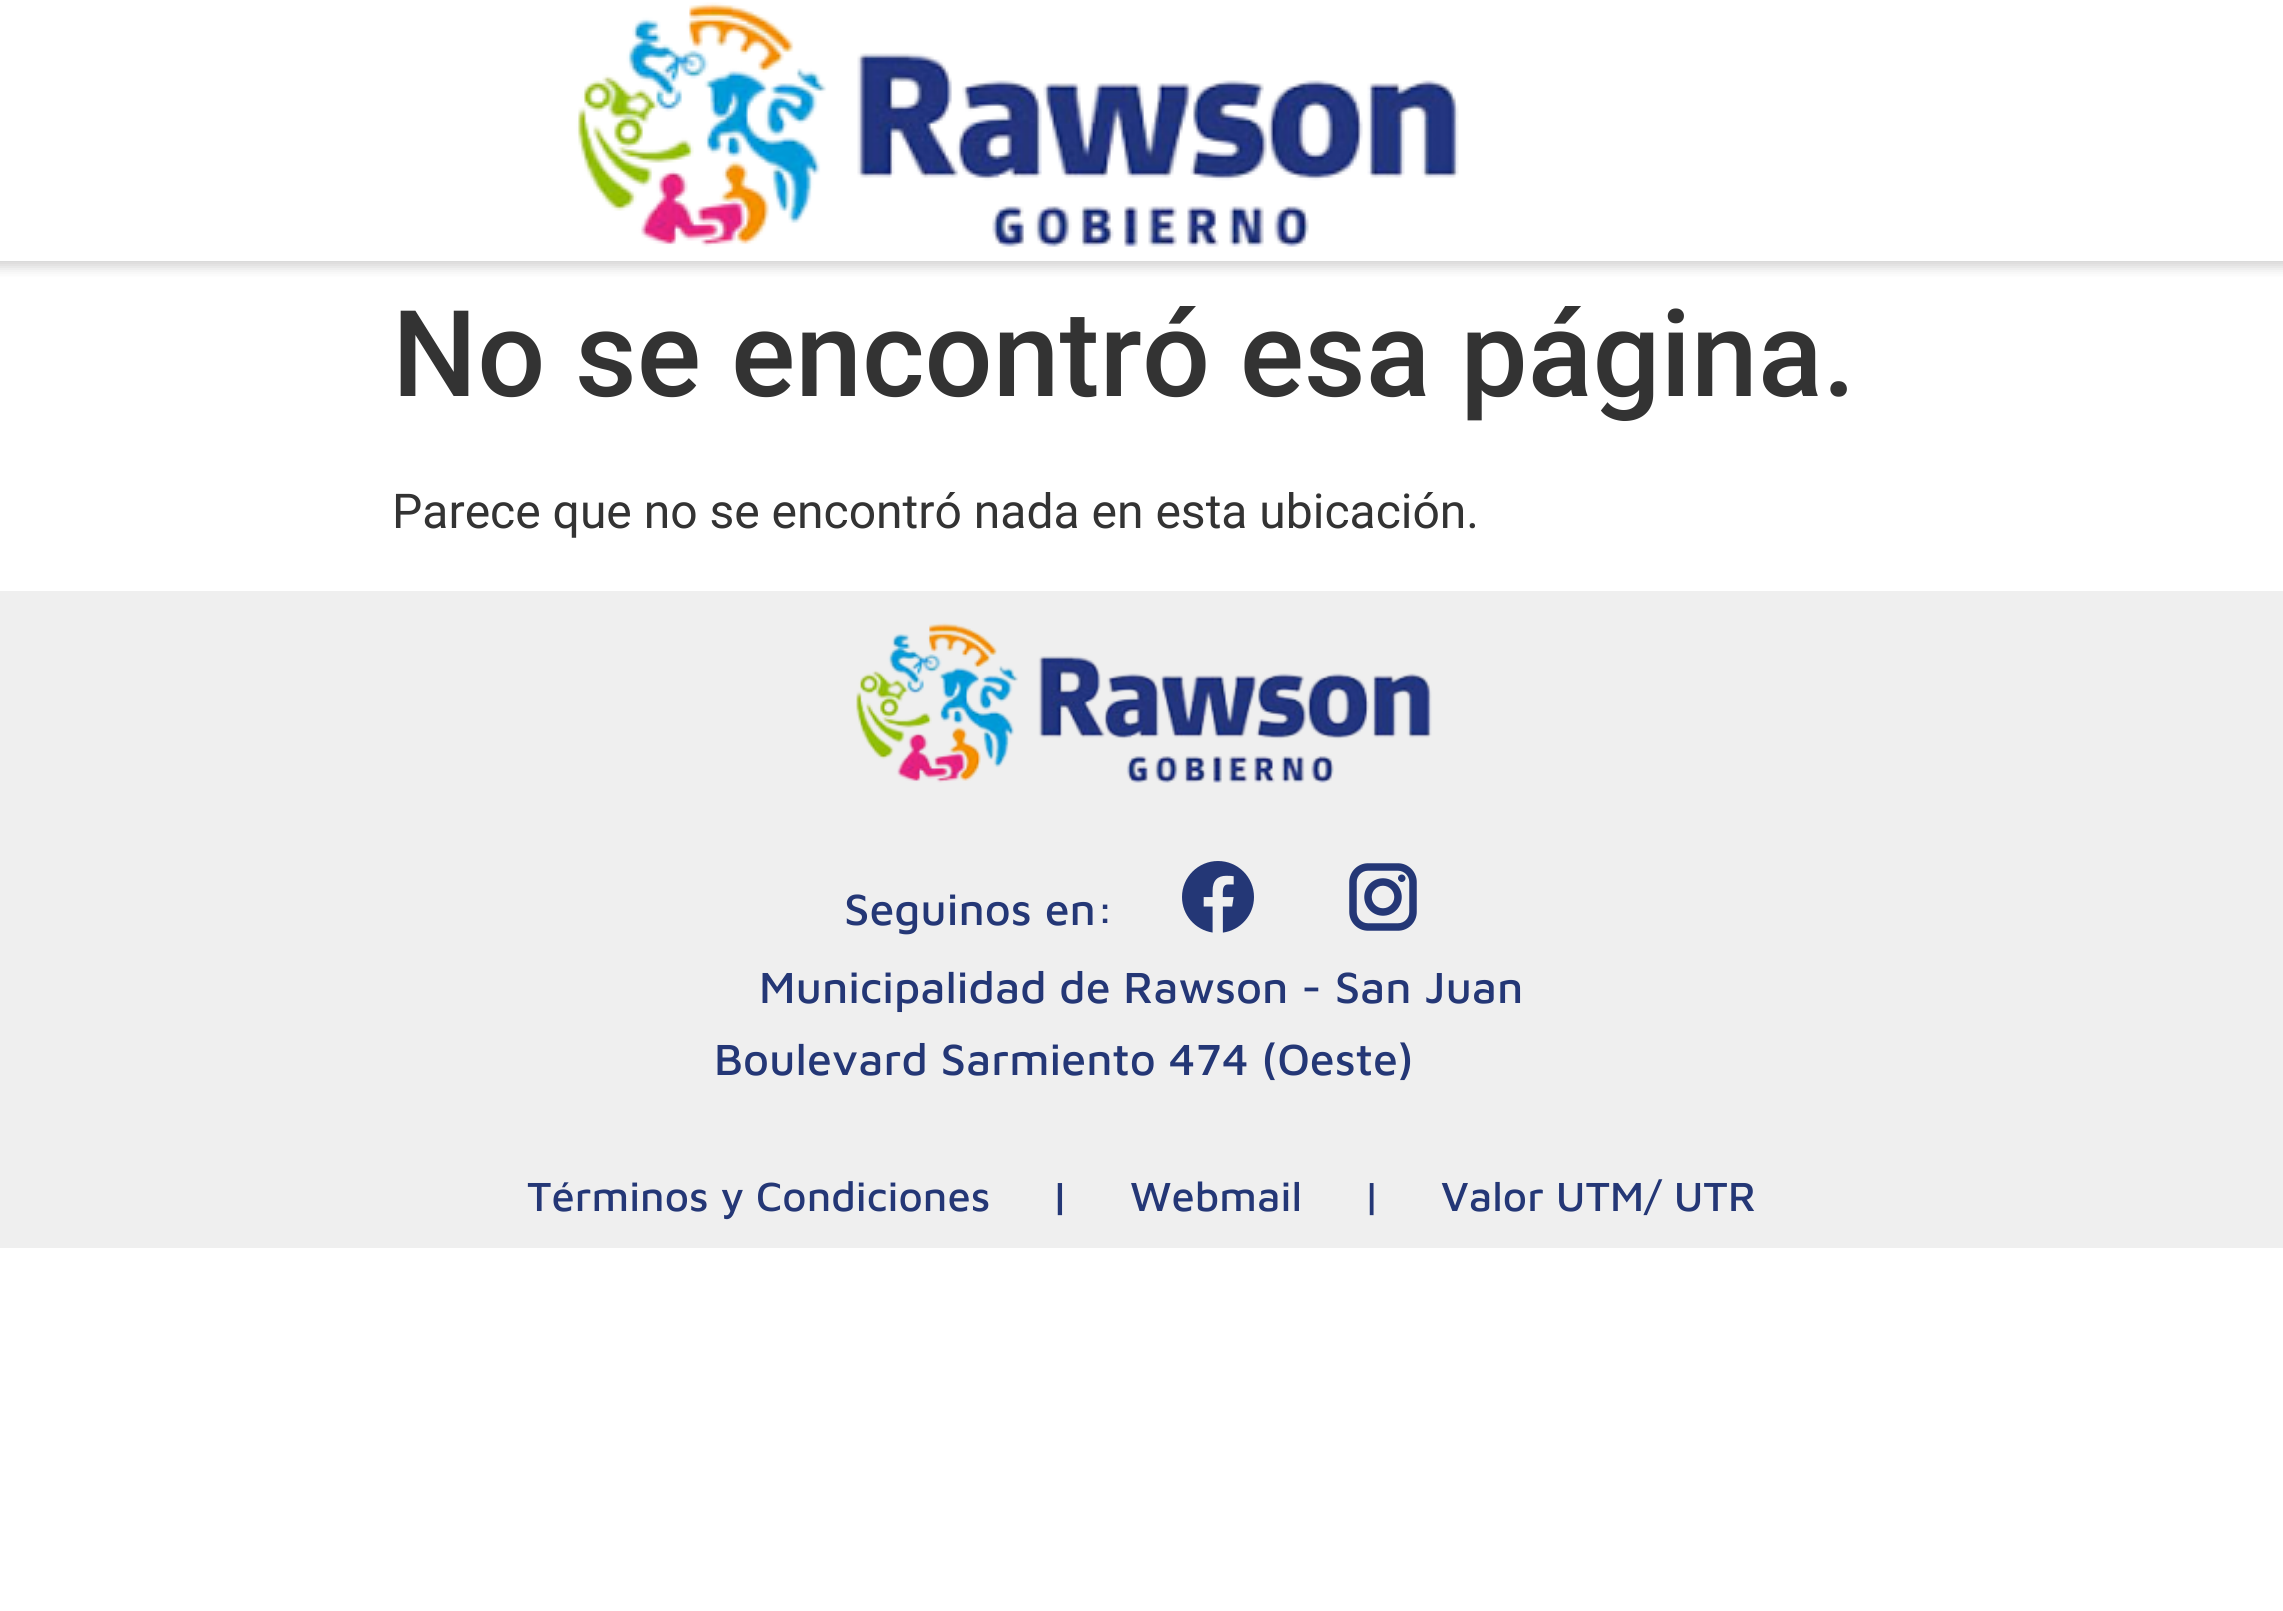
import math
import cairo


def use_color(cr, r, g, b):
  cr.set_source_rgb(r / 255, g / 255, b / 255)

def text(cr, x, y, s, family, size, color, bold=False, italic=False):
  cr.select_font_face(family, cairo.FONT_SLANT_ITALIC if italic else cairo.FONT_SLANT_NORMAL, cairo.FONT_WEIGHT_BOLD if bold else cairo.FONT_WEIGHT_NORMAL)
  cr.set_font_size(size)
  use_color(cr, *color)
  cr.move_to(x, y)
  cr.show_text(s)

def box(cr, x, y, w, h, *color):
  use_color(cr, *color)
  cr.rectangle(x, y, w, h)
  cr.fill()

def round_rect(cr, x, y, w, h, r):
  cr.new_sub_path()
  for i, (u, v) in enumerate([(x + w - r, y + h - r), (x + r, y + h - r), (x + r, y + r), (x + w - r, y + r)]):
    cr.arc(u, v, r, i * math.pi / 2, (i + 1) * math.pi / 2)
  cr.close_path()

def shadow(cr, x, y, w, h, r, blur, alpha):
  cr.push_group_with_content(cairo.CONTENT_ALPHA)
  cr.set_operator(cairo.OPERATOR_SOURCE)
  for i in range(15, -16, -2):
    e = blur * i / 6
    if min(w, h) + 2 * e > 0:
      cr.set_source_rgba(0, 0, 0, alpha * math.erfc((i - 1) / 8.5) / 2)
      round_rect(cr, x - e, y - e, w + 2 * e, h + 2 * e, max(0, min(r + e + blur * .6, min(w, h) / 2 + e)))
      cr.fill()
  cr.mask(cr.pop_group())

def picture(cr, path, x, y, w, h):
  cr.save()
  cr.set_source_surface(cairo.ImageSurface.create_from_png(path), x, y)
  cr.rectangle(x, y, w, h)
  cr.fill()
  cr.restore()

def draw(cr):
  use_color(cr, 255, 255, 255)
  cr.paint()
  cr.save()
  cr.rectangle(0, 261, 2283, 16)
  cr.clip()
  use_color(cr, 168, 167, 167)
  shadow(cr, -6, -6, 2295, 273, 0, 6, 0.5)
  cr.restore()
  picture(cr, "img_01.png", 576, 2, 883, 245)
  box(cr, 0, 591, 2283, 657, 239, 239, 239)
  picture(cr, "img_02.png", 855, 622, 577, 161)
  picture(cr, "img_03.png", 1182, 861, 72, 72)
  picture(cr, "img_04.png", 1349, 863, 68, 68)
  text(cr, 392, 396, "No se encontró esa página.", "Roboto Medium", 120, (51, 51, 51))
  text(cr, 392, 528, "Parece que no se encontró nada en esta ubicación.", "Roboto", 48, (51, 51, 51))
  text(cr, 844, 925, "Seguinos en:", "Maven Pro Medium", 45, (36, 55, 118))
  text(cr, 759, 1003, "Municipalidad de Rawson - San Juan", "Maven Pro Medium", 45, (36, 55, 118))
  text(cr, 714, 1075, "Boulevard Sarmiento 474 (Oeste)", "Maven Pro Medium", 45, (36, 55, 118))
  text(cr, 527, 1211, "Términos y Condiciones", "Maven Pro Medium", 42, (36, 55, 118))
  text(cr, 1050, 1211, "|", "Maven Pro SemiBold", 42, (36, 55, 118))
  text(cr, 1130, 1211, "Webmail", "Maven Pro Medium", 42, (36, 55, 118))
  text(cr, 1362, 1211, "|", "Maven Pro Medium", 42, (36, 55, 118))
  text(cr, 1441, 1211, "Valor UTM/ UTR", "Maven Pro Medium", 42, (36, 55, 118))


surface = cairo.ImageSurface(cairo.FORMAT_RGB24, 2283, 1611)
cr = cairo.Context(surface)
options = cairo.FontOptions()
options.set_hint_metrics(cairo.HINT_METRICS_OFF)
options.set_hint_style(cairo.HINT_STYLE_NONE)
cr.set_font_options(options)
cr.set_miter_limit(4)
draw(cr)
surface.write_to_png("out.png")
